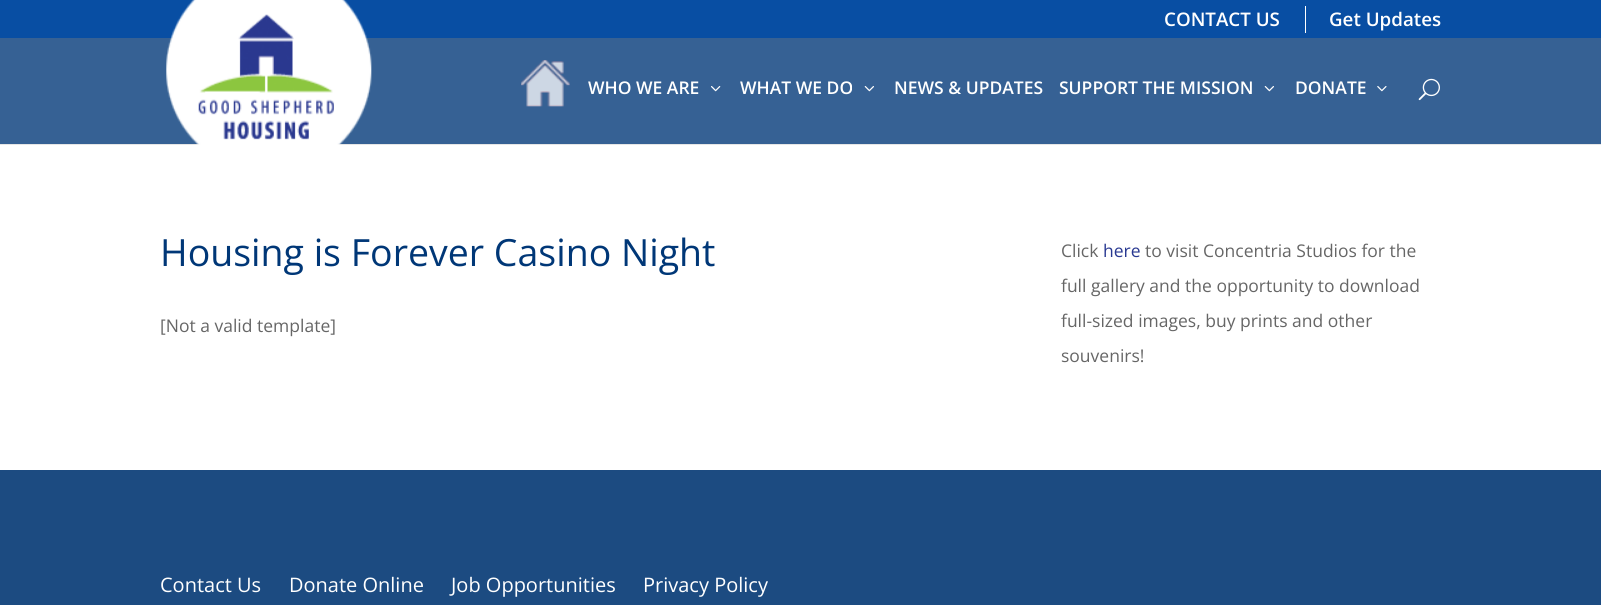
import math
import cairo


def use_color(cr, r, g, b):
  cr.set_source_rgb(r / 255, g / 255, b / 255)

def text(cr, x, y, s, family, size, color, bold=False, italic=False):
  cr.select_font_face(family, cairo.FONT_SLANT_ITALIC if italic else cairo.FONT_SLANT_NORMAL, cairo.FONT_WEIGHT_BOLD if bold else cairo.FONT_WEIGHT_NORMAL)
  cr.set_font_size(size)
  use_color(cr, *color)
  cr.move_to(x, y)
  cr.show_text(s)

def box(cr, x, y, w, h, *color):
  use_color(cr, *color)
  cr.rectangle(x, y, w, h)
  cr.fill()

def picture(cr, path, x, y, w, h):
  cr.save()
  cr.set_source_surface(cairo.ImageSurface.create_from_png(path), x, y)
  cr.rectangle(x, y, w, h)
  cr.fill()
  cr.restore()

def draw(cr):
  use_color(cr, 255, 255, 255)
  cr.paint()
  box(cr, 0, 0, 1601, 38, 8, 78, 163)
  box(cr, 1305, 6, 1, 27, 255, 255, 255)
  box(cr, 0, 144, 1601, 1, 230, 230, 230)
  box(cr, 0, 38, 1601, 106, 54, 97, 148)
  picture(cr, "img_01.png", 166, 0, 206, 145)
  picture(cr, "img_02.png", 521, 60, 49, 47)
  picture(cr, "img_03.png", 711, 86, 10, 6)
  picture(cr, "img_04.png", 864, 86, 10, 6)
  picture(cr, "img_04.png", 1264, 86, 10, 6)
  picture(cr, "img_05.png", 1377, 86, 10, 6)
  picture(cr, "img_06.png", 1418, 78, 22, 23)
  box(cr, 0, 470, 1601, 135, 28, 75, 129)
  text(cr, 1164, 26, "CONTACT US", "Open Sans SemiBold", 18.75, (255, 255, 255))
  text(cr, 1329, 26, "Get Updates", "Open Sans SemiBold", 18.75, (255, 255, 255))
  text(cr, 588, 94, "WHO WE ARE", "Open Sans SemiBold", 17.5, (255, 255, 255))
  text(cr, 740, 94, "WHAT WE DO", "Open Sans SemiBold", 17.5, (255, 255, 255))
  text(cr, 894, 94, "NEWS & UPDATES", "Open Sans SemiBold", 17.5, (255, 255, 255))
  text(cr, 1059, 94, "SUPPORT THE MISSION", "Open Sans SemiBold", 17.5, (255, 255, 255))
  text(cr, 1295, 94, "DONATE", "Open Sans SemiBold", 17.5, (255, 255, 255))
  text(cr, 160, 266, "Housing is Forever Casino Night", "Open Sans", 37.5, (0, 55, 119))
  text(cr, 160, 332, "[Not a valid template]", "Open Sans", 17.5, (102, 102, 102))
  text(cr, 1061, 257, "Click", "Open Sans", 17.5, (102, 102, 102))
  text(cr, 1103, 257, "here", "Open Sans", 17.5, (40, 56, 145))
  text(cr, 1145, 257, "to visit Concentria Studios for the", "Open Sans", 17.5, (102, 102, 102))
  text(cr, 1061, 292, "full gallery and the opportunity to download", "Open Sans", 17.5, (102, 102, 102))
  text(cr, 1061, 327, "full-sized images, buy prints and other", "Open Sans", 17.5, (102, 102, 102))
  text(cr, 1061, 362, "souvenirs!", "Open Sans", 17.5, (102, 102, 102))
  text(cr, 160, 592, "Contact Us", "Open Sans", 20, (255, 255, 255))
  text(cr, 289, 592, "Donate Online", "Open Sans", 20, (255, 255, 255))
  text(cr, 451, 592, "Job Opportunities", "Open Sans", 20, (255, 255, 255))
  text(cr, 643, 592, "Privacy Policy", "Open Sans", 20, (255, 255, 255))


surface = cairo.ImageSurface(cairo.FORMAT_RGB24, 1601, 605)
cr = cairo.Context(surface)
options = cairo.FontOptions()
options.set_hint_metrics(cairo.HINT_METRICS_OFF)
options.set_hint_style(cairo.HINT_STYLE_NONE)
cr.set_font_options(options)
cr.set_miter_limit(4)
draw(cr)
surface.write_to_png("out.png")
